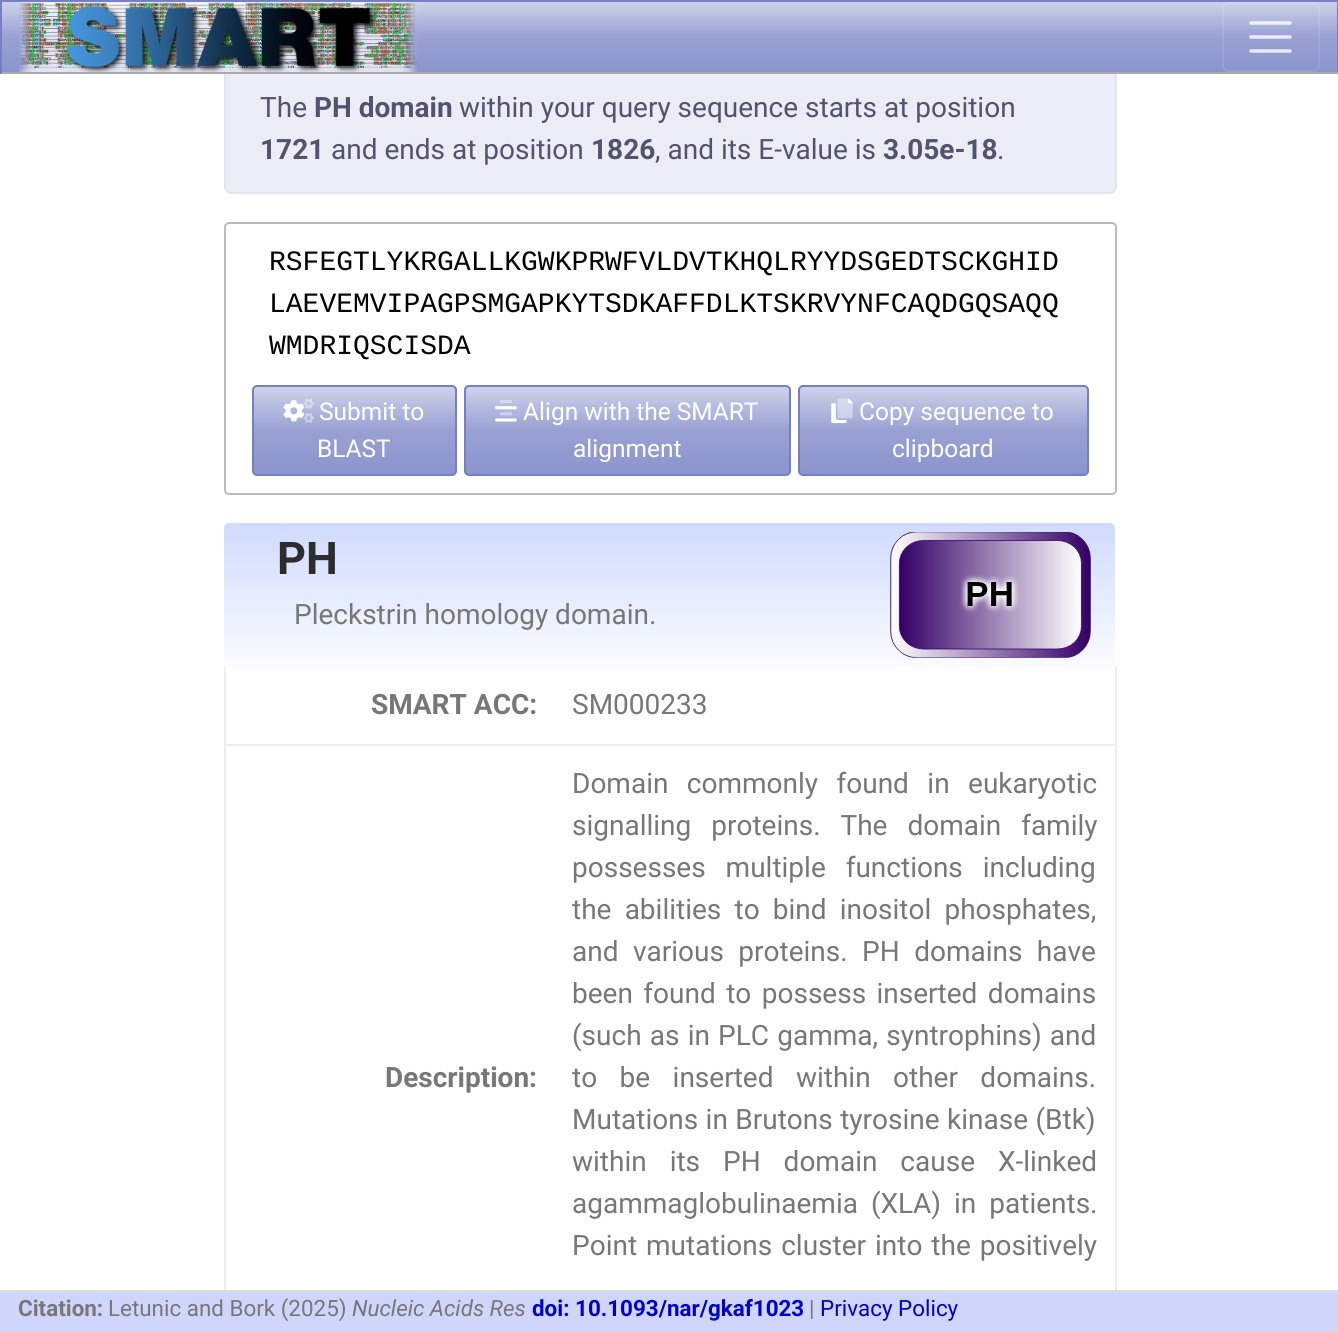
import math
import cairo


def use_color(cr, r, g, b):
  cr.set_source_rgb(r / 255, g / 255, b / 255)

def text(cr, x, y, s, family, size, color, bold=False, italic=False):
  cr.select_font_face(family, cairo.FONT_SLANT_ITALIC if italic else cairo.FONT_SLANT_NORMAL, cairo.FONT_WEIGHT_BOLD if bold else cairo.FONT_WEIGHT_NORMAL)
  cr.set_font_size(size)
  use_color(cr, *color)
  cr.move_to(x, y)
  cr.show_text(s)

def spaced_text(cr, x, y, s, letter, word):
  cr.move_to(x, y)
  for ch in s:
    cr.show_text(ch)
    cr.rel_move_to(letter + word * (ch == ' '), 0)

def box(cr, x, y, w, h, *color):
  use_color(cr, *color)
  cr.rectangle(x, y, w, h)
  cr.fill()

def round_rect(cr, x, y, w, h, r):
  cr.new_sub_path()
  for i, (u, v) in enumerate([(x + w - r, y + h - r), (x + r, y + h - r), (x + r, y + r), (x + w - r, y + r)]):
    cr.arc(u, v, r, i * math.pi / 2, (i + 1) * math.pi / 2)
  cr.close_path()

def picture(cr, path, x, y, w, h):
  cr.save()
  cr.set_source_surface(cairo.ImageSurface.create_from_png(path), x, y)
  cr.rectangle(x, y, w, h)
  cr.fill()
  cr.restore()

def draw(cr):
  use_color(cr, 255, 255, 255)
  cr.paint()
  use_color(cr, 235, 236, 246)
  round_rect(cr, 225, 66, 891, 127, 6)
  cr.fill_preserve()
  use_color(cr, 226, 229, 243)
  cr.stroke()
  gradient = cairo.LinearGradient(669, 1.7, 669, 72)
  gradient.add_color_stop_rgba(0, 0.808, 0.824, 0.918, 1)
  gradient.add_color_stop_rgba(0.5, 0.6, 0.631, 0.827, 1)
  gradient.add_color_stop_rgba(1, 0.545, 0.58, 0.804, 1)
  cr.set_source(gradient)
  cr.rectangle(2, 2, 1335, 70)
  cr.fill()
  box(cr, 0, 0, 1338, 2, 117, 128, 196)
  box(cr, 1337, 0, 1, 74, 117, 128, 196)
  box(cr, 0, 72, 1338, 2, 170, 170, 170)
  box(cr, 0, 0, 2, 74, 117, 128, 196)
  picture(cr, "img_01.png", 19, 2, 399, 70)
  round_rect(cr, 1223, 3, 96, 68, 6)
  cr.set_source_rgba(1, 1, 1, 0.1)
  cr.stroke()
  cr.new_path()
  cr.move_to(1251, 23)
  cr.line_to(1290, 23)
  cr.move_to(1251, 37)
  cr.line_to(1290, 37)
  cr.move_to(1251, 51)
  cr.line_to(1290, 51)
  cr.set_source_rgba(1, 1, 1, 0.8)
  cr.set_line_width(3.5)
  cr.set_line_cap(cairo.LINE_CAP_ROUND)
  cr.stroke()
  round_rect(cr, 225, 223, 891, 271, 4)
  use_color(cr, 187, 187, 187)
  cr.set_line_width(2)
  cr.set_line_cap(cairo.LINE_CAP_BUTT)
  cr.stroke()
  gradient = cairo.LinearGradient(354, 387, 354, 474)
  gradient.add_color_stop_rgba(0, 0.808, 0.824, 0.918, 1)
  gradient.add_color_stop_rgba(0.5, 0.6, 0.631, 0.827, 1)
  gradient.add_color_stop_rgba(1, 0.545, 0.58, 0.804, 1)
  cr.set_source(gradient)
  cr.rectangle(254, 387, 201, 87)
  cr.fill()
  round_rect(cr, 253, 386, 203, 89, 4)
  use_color(cr, 117, 128, 196)
  cr.stroke()
  picture(cr, "img_02.png", 283, 400, 22, 22)
  picture(cr, "img_03.png", 303, 398, 11, 25)
  gradient = cairo.LinearGradient(627, 387, 627, 474)
  gradient.add_color_stop_rgba(0, 0.808, 0.824, 0.918, 1)
  gradient.add_color_stop_rgba(0.5, 0.6, 0.631, 0.827, 1)
  gradient.add_color_stop_rgba(1, 0.545, 0.58, 0.804, 1)
  cr.set_source(gradient)
  cr.rectangle(466, 387, 323, 87)
  cr.fill()
  round_rect(cr, 465, 386, 325, 89, 4)
  use_color(cr, 117, 128, 196)
  cr.stroke()
  picture(cr, "img_05.png", 495, 406, 22, 16)
  picture(cr, "img_04.png", 499, 400, 13, 16)
  gradient = cairo.LinearGradient(943, 387, 943, 474)
  gradient.add_color_stop_rgba(0, 0.808, 0.824, 0.918, 1)
  gradient.add_color_stop_rgba(0.5, 0.6, 0.631, 0.827, 1)
  gradient.add_color_stop_rgba(1, 0.545, 0.58, 0.804, 1)
  cr.set_source(gradient)
  cr.rectangle(800, 387, 287, 87)
  cr.fill()
  round_rect(cr, 799, 386, 289, 89, 4)
  use_color(cr, 117, 128, 196)
  cr.stroke()
  picture(cr, "img_06.png", 831, 398, 22, 26)
  picture(cr, "img_07.png", 837, 398, 16, 21)
  gradient = cairo.LinearGradient(669, 523, 669, 667)
  gradient.add_color_stop_rgba(0, 0.812, 0.855, 1, 1)
  gradient.add_color_stop_rgba(1, 0.984, 0.988, 1, 1)
  cr.set_source(gradient)
  round_rect(cr, 224, 523, 891, 144, 5)
  cr.fill()
  picture(cr, "img_08.png", 890, 532, 201, 126)
  box(cr, 224, 744, 2, 546, 238, 238, 238)
  box(cr, 1115, 667, 2, 623, 238, 238, 238)
  box(cr, 224, 744, 893, 2, 238, 238, 238)
  box(cr, 224, 667, 2, 79, 238, 238, 238)
  box(cr, 0, 1292, 1338, 40, 208, 214, 251)
  box(cr, 0, 1290, 1338, 2, 221, 221, 221)
  text(cr, 260, 117, "The", "Roboto", 28, (80, 84, 110))
  text(cr, 314, 117, "PH domain", "Roboto", 28, (80, 84, 110), bold=True)
  text(cr, 459, 117, "within your query sequence starts at position", "Roboto", 28, (80, 84, 110))
  text(cr, 260, 159, "1721", "Roboto", 28, (80, 84, 110), bold=True)
  text(cr, 331, 159, "and ends at position", "Roboto", 28, (80, 84, 110))
  text(cr, 591, 159, "1826", "Roboto", 28, (80, 84, 110), bold=True)
  text(cr, 655, 159, ", and its E-value is", "Roboto", 28, (80, 84, 110))
  text(cr, 883, 159, "3.05e-18", "Roboto", 28, (80, 84, 110), bold=True)
  text(cr, 997, 159, ".", "Roboto", 28, (80, 84, 110))
  text(cr, 269, 270, "RSFEGTLYKRGALLKGWKPRWFVLDVTKHQLRYYDSGEDTSCKGHID", "Liberation Mono", 28, (0, 0, 0))
  text(cr, 269, 312, "LAEVEMVIPAGPSMGAPKYTSDKAFFDLKTSKRVYNFCAQDGQSAQQ", "Liberation Mono", 28, (0, 0, 0))
  text(cr, 269, 354, "WMDRIQSCISDA", "Liberation Mono", 28, (0, 0, 0))
  text(cr, 319, 420, "Submit to", "Roboto", 24.5, (255, 255, 255))
  text(cr, 317, 457, "BLAST", "Roboto", 24.5, (255, 255, 255))
  text(cr, 523, 420, "Align with the SMART", "Roboto", 24.5, (255, 255, 255))
  text(cr, 573, 457, "alignment", "Roboto", 24.5, (255, 255, 255))
  text(cr, 859, 420, "Copy sequence to", "Roboto", 24.5, (255, 255, 255))
  text(cr, 892, 457, "clipboard", "Roboto", 24.5, (255, 255, 255))
  text(cr, 277, 574, "PH", "Roboto", 45, (45, 45, 45), bold=True)
  text(cr, 294, 624, "Pleckstrin homology domain.", "Roboto", 28, (119, 119, 119))
  text(cr, 371, 714, "SMART ACC:", "Roboto", 28, (119, 119, 119), bold=True)
  text(cr, 572, 714, "SM000233", "Roboto", 28, (119, 119, 119))
  text(cr, 385, 1087, "Description:", "Roboto", 28, (119, 119, 119), bold=True)
  cr.select_font_face("Roboto")
  spaced_text(cr, 572, 793, "Domain commonly found in eukaryotic", 0, 11.5)
  spaced_text(cr, 572, 835, "signalling proteins. The domain family", 0, 13)
  spaced_text(cr, 572, 877, "possesses multiple functions including", 0, 13)
  spaced_text(cr, 572, 919, "the abilities to bind inositol phosphates,", 0, 6.25)
  spaced_text(cr, 572, 961, "and various proteins. PH domains have", 0, 7.5)
  spaced_text(cr, 572, 1003, "been found to possess inserted domains", 0, 3.5)
  spaced_text(cr, 572, 1045, "(such as in PLC gamma, syntrophins) and", 0, 1.25)
  spaced_text(cr, 572, 1087, "to be inserted within other domains.", 0, 15.5)
  spaced_text(cr, 572, 1129, "Mutations in Brutons tyrosine kinase (Btk)", 0, 0.5)
  spaced_text(cr, 572, 1171, "within its PH domain cause X-linked", 0, 16)
  spaced_text(cr, 572, 1213, "agammaglobulinaemia (XLA) in patients.", 0, 6)
  spaced_text(cr, 572, 1255, "Point mutations cluster into the positively", 0, 2)
  text(cr, 18, 1316, "Citation:", "Roboto", 22.4, (119, 119, 119), bold=True)
  text(cr, 108, 1316, "Letunic and Bork (2025)", "Roboto", 22.4, (119, 119, 119))
  text(cr, 352, 1316, "Nucleic Acids Res", "Roboto", 22.4, (119, 119, 119), italic=True)
  text(cr, 532, 1316, "doi: 10.1093/nar/gkaf1023", "Roboto", 22.4, (0, 0, 205), bold=True)
  text(cr, 809, 1316, "|", "Roboto", 22.4, (119, 119, 119))
  text(cr, 820, 1316, "Privacy Policy", "Roboto", 22.4, (0, 0, 205))


surface = cairo.ImageSurface(cairo.FORMAT_RGB24, 1338, 1332)
cr = cairo.Context(surface)
options = cairo.FontOptions()
options.set_hint_metrics(cairo.HINT_METRICS_OFF)
options.set_hint_style(cairo.HINT_STYLE_NONE)
cr.set_font_options(options)
cr.set_miter_limit(4)
draw(cr)
surface.write_to_png("out.png")
